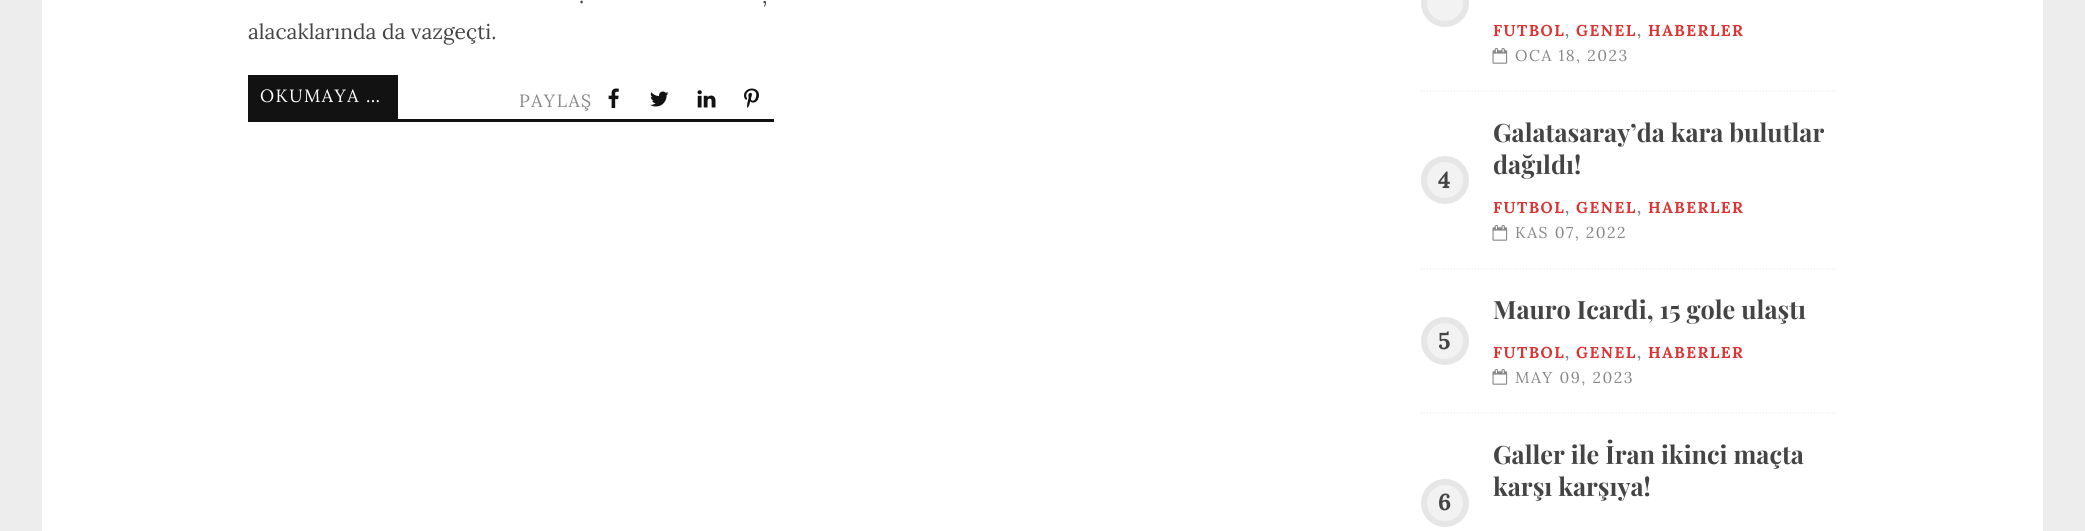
import math
import cairo


def use_color(cr, r, g, b):
  cr.set_source_rgb(r / 255, g / 255, b / 255)

def text(cr, x, y, s, family, size, color, bold=False, italic=False):
  cr.select_font_face(family, cairo.FONT_SLANT_ITALIC if italic else cairo.FONT_SLANT_NORMAL, cairo.FONT_WEIGHT_BOLD if bold else cairo.FONT_WEIGHT_NORMAL)
  cr.set_font_size(size)
  use_color(cr, *color)
  cr.move_to(x, y)
  cr.show_text(s)

def spaced_text(cr, x, y, s, letter, word):
  cr.move_to(x, y)
  for ch in s:
    cr.show_text(ch)
    cr.rel_move_to(letter + word * (ch == ' '), 0)

def box(cr, x, y, w, h, *color):
  use_color(cr, *color)
  cr.rectangle(x, y, w, h)
  cr.fill()

def picture(cr, path, x, y, w, h):
  cr.save()
  cr.set_source_surface(cairo.ImageSurface.create_from_png(path), x, y)
  cr.rectangle(x, y, w, h)
  cr.fill()
  cr.restore()

def draw(cr):
  use_color(cr, 237, 237, 237)
  cr.paint()
  box(cr, 42, 0, 2001, 531, 255, 255, 255)
  box(cr, 248, 119, 526, 3, 18, 18, 18)
  box(cr, 248, 75, 150, 44, 18, 18, 18)
  picture(cr, "img_01.png", 608, 88, 11, 20)
  picture(cr, "img_02.png", 650, 91, 19, 16)
  picture(cr, "img_03.png", 697, 90, 19, 18)
  picture(cr, "img_04.png", 744, 88, 15, 20)
  cr.new_path()
  cr.move_to(1420.5, 91)
  cr.line_to(1837.5, 91)
  use_color(cr, 242, 242, 242)
  cr.set_line_width(1.5)
  cr.set_dash([1.5, 1.5])
  cr.stroke()
  cr.arc(1445, 3, 24, 0, 2 * math.pi)
  cr.fill()
  cr.arc(1445, 3, 21, 0, 2 * math.pi)
  cr.set_source_rgba(0.502, 0.502, 0.502, 0.1)
  cr.set_line_width(6)
  cr.set_dash([])
  cr.stroke()
  picture(cr, "img_05.png", 1492, 48, 16, 16)
  cr.new_path()
  cr.move_to(1420.5, 269)
  cr.line_to(1837.5, 269)
  use_color(cr, 242, 242, 242)
  cr.set_line_width(1.5)
  cr.set_dash([1.5, 1.5])
  cr.stroke()
  cr.arc(1445, 180, 24, 0, 2 * math.pi)
  cr.fill()
  cr.arc(1445, 180, 21, 0, 2 * math.pi)
  cr.set_source_rgba(0.502, 0.502, 0.502, 0.1)
  cr.set_line_width(6)
  cr.set_dash([])
  cr.stroke()
  picture(cr, "img_05.png", 1492, 225, 16, 16)
  cr.new_path()
  cr.move_to(1420.5, 413)
  cr.line_to(1837.5, 413)
  use_color(cr, 242, 242, 242)
  cr.set_line_width(1.5)
  cr.set_dash([1.5, 1.5])
  cr.stroke()
  cr.arc(1445, 341, 24, 0, 2 * math.pi)
  cr.fill()
  cr.arc(1445, 341, 21, 0, 2 * math.pi)
  cr.set_source_rgba(0.502, 0.502, 0.502, 0.1)
  cr.set_line_width(6)
  cr.set_dash([])
  cr.stroke()
  picture(cr, "img_05.png", 1492, 369, 16, 16)
  use_color(cr, 242, 242, 242)
  cr.arc(1445, 503, 24, 0, 2 * math.pi)
  cr.fill()
  cr.arc(1445, 503, 21, 0, 2 * math.pi)
  cr.set_source_rgba(0.502, 0.502, 0.502, 0.1)
  cr.stroke()
  text(cr, 579, 3, ".", "Lora", 21, (68, 68, 68))
  text(cr, 762, 3, ",", "Lora", 21, (68, 68, 68))
  text(cr, 248, 39, "alacaklarında da vazgeçti.", "Lora", 21, (68, 68, 68))
  cr.set_font_size(17.75)
  use_color(cr, 255, 255, 255)
  spaced_text(cr, 260, 102, "OKUMAYA …", 1.5, 0)
  use_color(cr, 136, 136, 136)
  spaced_text(cr, 519, 107, "PAYLAŞ", 1.5, 0)
  cr.select_font_face("Lora", cairo.FONT_SLANT_NORMAL, cairo.FONT_WEIGHT_BOLD)
  cr.set_font_size(15.75)
  use_color(cr, 221, 51, 51)
  spaced_text(cr, 1493, 36, "FUTBOL", 1.5, 0)
  use_color(cr, 136, 136, 136)
  spaced_text(cr, 1565, 36, ",", 1.5, 0)
  use_color(cr, 221, 51, 51)
  spaced_text(cr, 1576, 36, "GENEL", 1.5, 0)
  use_color(cr, 136, 136, 136)
  spaced_text(cr, 1637, 36, ",", 1.5, 0)
  use_color(cr, 221, 51, 51)
  spaced_text(cr, 1648, 36, "HABERLER", 1.5, 0)
  cr.select_font_face("Lora")
  use_color(cr, 136, 136, 136)
  spaced_text(cr, 1515, 61, "OCA 18, 2023", 1.5, 0)
  text(cr, 1438, 188, "4", "Lora", 23, (68, 68, 68), bold=True)
  text(cr, 1493, 142, "Galatasaray’da kara bulutlar", "Playfair Display", 25.25, (68, 68, 68), bold=True)
  text(cr, 1493, 174, "dağıldı!", "Playfair Display", 25.25, (68, 68, 68), bold=True)
  cr.select_font_face("Lora", cairo.FONT_SLANT_NORMAL, cairo.FONT_WEIGHT_BOLD)
  cr.set_font_size(15.75)
  use_color(cr, 221, 51, 51)
  spaced_text(cr, 1493, 213, "FUTBOL", 1.5, 0)
  use_color(cr, 136, 136, 136)
  spaced_text(cr, 1565, 213, ",", 1.5, 0)
  use_color(cr, 221, 51, 51)
  spaced_text(cr, 1576, 213, "GENEL", 1.5, 0)
  use_color(cr, 136, 136, 136)
  spaced_text(cr, 1637, 213, ",", 1.5, 0)
  use_color(cr, 221, 51, 51)
  spaced_text(cr, 1648, 213, "HABERLER", 1.5, 0)
  cr.select_font_face("Lora")
  use_color(cr, 136, 136, 136)
  spaced_text(cr, 1515, 238, "KAS 07, 2022", 1.5, 0)
  text(cr, 1438, 349, "5", "Lora", 23, (68, 68, 68), bold=True)
  text(cr, 1493, 319, "Mauro Icardi, 15 gole ulaştı", "Playfair Display", 25.25, (68, 68, 68), bold=True)
  cr.select_font_face("Lora", cairo.FONT_SLANT_NORMAL, cairo.FONT_WEIGHT_BOLD)
  cr.set_font_size(15.75)
  use_color(cr, 221, 51, 51)
  spaced_text(cr, 1493, 358, "FUTBOL", 1.5, 0)
  use_color(cr, 136, 136, 136)
  spaced_text(cr, 1565, 358, ",", 1.5, 0)
  use_color(cr, 221, 51, 51)
  spaced_text(cr, 1576, 358, "GENEL", 1.5, 0)
  use_color(cr, 136, 136, 136)
  spaced_text(cr, 1637, 358, ",", 1.5, 0)
  use_color(cr, 221, 51, 51)
  spaced_text(cr, 1648, 358, "HABERLER", 1.5, 0)
  cr.select_font_face("Lora")
  use_color(cr, 136, 136, 136)
  spaced_text(cr, 1515, 383, "MAY 09, 2023", 1.5, 0)
  text(cr, 1438, 510, "6", "Lora", 23, (68, 68, 68), bold=True)
  text(cr, 1493, 464, "Galler ile İran ikinci maçta", "Playfair Display", 25.25, (68, 68, 68), bold=True)
  text(cr, 1493, 496, "karşı karşıya!", "Playfair Display", 25.25, (68, 68, 68), bold=True)


surface = cairo.ImageSurface(cairo.FORMAT_RGB24, 2085, 531)
cr = cairo.Context(surface)
options = cairo.FontOptions()
options.set_hint_metrics(cairo.HINT_METRICS_OFF)
options.set_hint_style(cairo.HINT_STYLE_NONE)
cr.set_font_options(options)
cr.set_miter_limit(4)
draw(cr)
surface.write_to_png("out.png")
